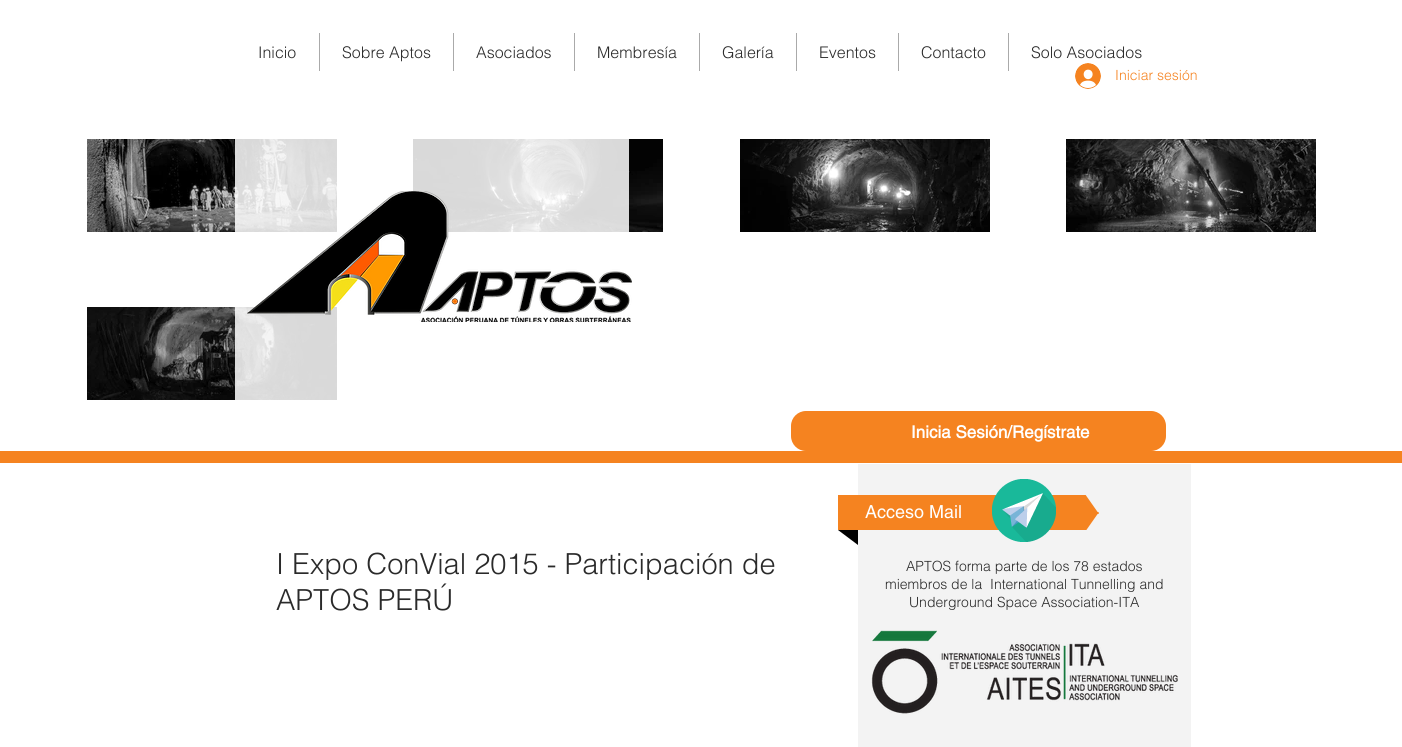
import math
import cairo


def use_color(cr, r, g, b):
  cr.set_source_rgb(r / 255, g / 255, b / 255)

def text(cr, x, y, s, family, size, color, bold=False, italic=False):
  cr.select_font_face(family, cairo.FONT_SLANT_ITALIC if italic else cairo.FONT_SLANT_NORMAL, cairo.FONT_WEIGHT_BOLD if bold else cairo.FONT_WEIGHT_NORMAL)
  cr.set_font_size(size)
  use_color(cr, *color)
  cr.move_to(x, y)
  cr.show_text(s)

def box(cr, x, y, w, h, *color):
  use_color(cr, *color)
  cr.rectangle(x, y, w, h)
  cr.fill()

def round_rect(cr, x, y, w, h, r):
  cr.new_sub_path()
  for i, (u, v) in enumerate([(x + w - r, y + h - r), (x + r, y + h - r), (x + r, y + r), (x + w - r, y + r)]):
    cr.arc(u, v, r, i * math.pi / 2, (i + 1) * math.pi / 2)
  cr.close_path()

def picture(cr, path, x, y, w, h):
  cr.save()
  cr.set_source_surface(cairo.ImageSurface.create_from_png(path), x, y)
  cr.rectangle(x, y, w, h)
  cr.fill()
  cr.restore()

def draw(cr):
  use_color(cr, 255, 255, 255)
  cr.paint()
  box(cr, 319, 33, 1, 38, 170, 170, 170)
  box(cr, 453, 33, 1, 38, 170, 170, 170)
  box(cr, 574, 33, 1, 38, 170, 170, 170)
  box(cr, 699, 33, 1, 38, 170, 170, 170)
  box(cr, 796, 33, 1, 38, 170, 170, 170)
  box(cr, 898, 33, 1, 38, 170, 170, 170)
  box(cr, 1008, 33, 1, 38, 170, 170, 170)
  picture(cr, "img_01.png", 1075, 63, 26, 26)
  picture(cr, "img_02.png", 87, 139, 250, 93)
  picture(cr, "img_03.png", 413, 139, 250, 93)
  picture(cr, "img_04.png", 740, 139, 250, 93)
  picture(cr, "img_05.png", 1066, 139, 250, 93)
  picture(cr, "img_06.png", 87, 307, 250, 93)
  cr.set_source_rgba(1, 1, 1, 0.85)
  cr.rectangle(235, 139, 394, 261)
  cr.fill()
  picture(cr, "img_07.png", 247, 191, 385, 131)
  use_color(cr, 245, 131, 32)
  round_rect(cr, 791, 411, 375, 40, 15)
  cr.fill()
  box(cr, 0, 451, 1402, 12, 245, 131, 32)
  box(cr, 858, 464, 333, 283, 243, 243, 243)
  cr.save()
  cr.rectangle(838, 495, 261, 35)
  cr.clip()
  use_color(cr, 245, 131, 32)
  cr.new_path()
  cr.move_to(488, 512)
  cr.line_to(1099, 512)
  cr.line_to(749, 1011)
  cr.line_to(488, 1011)
  cr.close_path()
  cr.fill()
  cr.new_path()
  cr.move_to(1099, 514)
  cr.line_to(488, 514)
  cr.line_to(488, 15)
  cr.line_to(749, 15)
  cr.close_path()
  cr.fill()
  cr.restore()
  picture(cr, "img_08.png", 992, 479, 64, 63)
  use_color(cr, 0, 0, 0)
  cr.new_path()
  cr.move_to(858, 530)
  cr.line_to(858, 545)
  cr.line_to(838, 530)
  cr.close_path()
  cr.fill()
  picture(cr, "img_09.png", 871, 630, 307, 84)
  text(cr, 258, 58, "Inicio", "helvetica Light", 16, (42, 42, 42))
  text(cr, 342, 58, "Sobre Aptos", "helvetica Light", 16, (42, 42, 42))
  text(cr, 476, 58, "Asociados", "helvetica Light", 16, (42, 42, 42))
  text(cr, 597, 58, "Membresía", "helvetica Light", 16, (42, 42, 42))
  text(cr, 722, 58, "Galería", "helvetica Light", 16, (42, 42, 42))
  text(cr, 819, 58, "Eventos", "helvetica Light", 16, (42, 42, 42))
  text(cr, 921, 58, "Contacto", "helvetica Light", 16, (42, 42, 42))
  text(cr, 1031, 58, "Solo Asociados", "helvetica Light", 16, (42, 42, 42))
  text(cr, 1115, 80, "Iniciar sesión", "helvetica Light", 14, (245, 131, 32))
  text(cr, 911, 438, "Inicia Sesión/Regístrate", "helvetica", 17, (255, 255, 255), bold=True)
  text(cr, 276, 574, "I Expo ConVial 2015 - Participación de", "helvetica Light", 29, (42, 42, 42))
  text(cr, 276, 610, "APTOS PERÚ", "helvetica Light", 29, (42, 42, 42))
  text(cr, 865, 518, "Acceso Mail", "helvetica", 18, (255, 255, 255))
  text(cr, 906, 571, "APTOS forma parte de los 78 estados", "helvetica Light", 14, (42, 42, 42))
  text(cr, 885, 589, "miembros de la  International Tunnelling and", "helvetica Light", 14, (42, 42, 42))
  text(cr, 909, 607, "Underground Space Association-ITA", "helvetica Light", 14, (42, 42, 42))


surface = cairo.ImageSurface(cairo.FORMAT_RGB24, 1402, 747)
cr = cairo.Context(surface)
options = cairo.FontOptions()
options.set_hint_metrics(cairo.HINT_METRICS_OFF)
options.set_hint_style(cairo.HINT_STYLE_NONE)
cr.set_font_options(options)
cr.set_miter_limit(4)
draw(cr)
surface.write_to_png("out.png")
